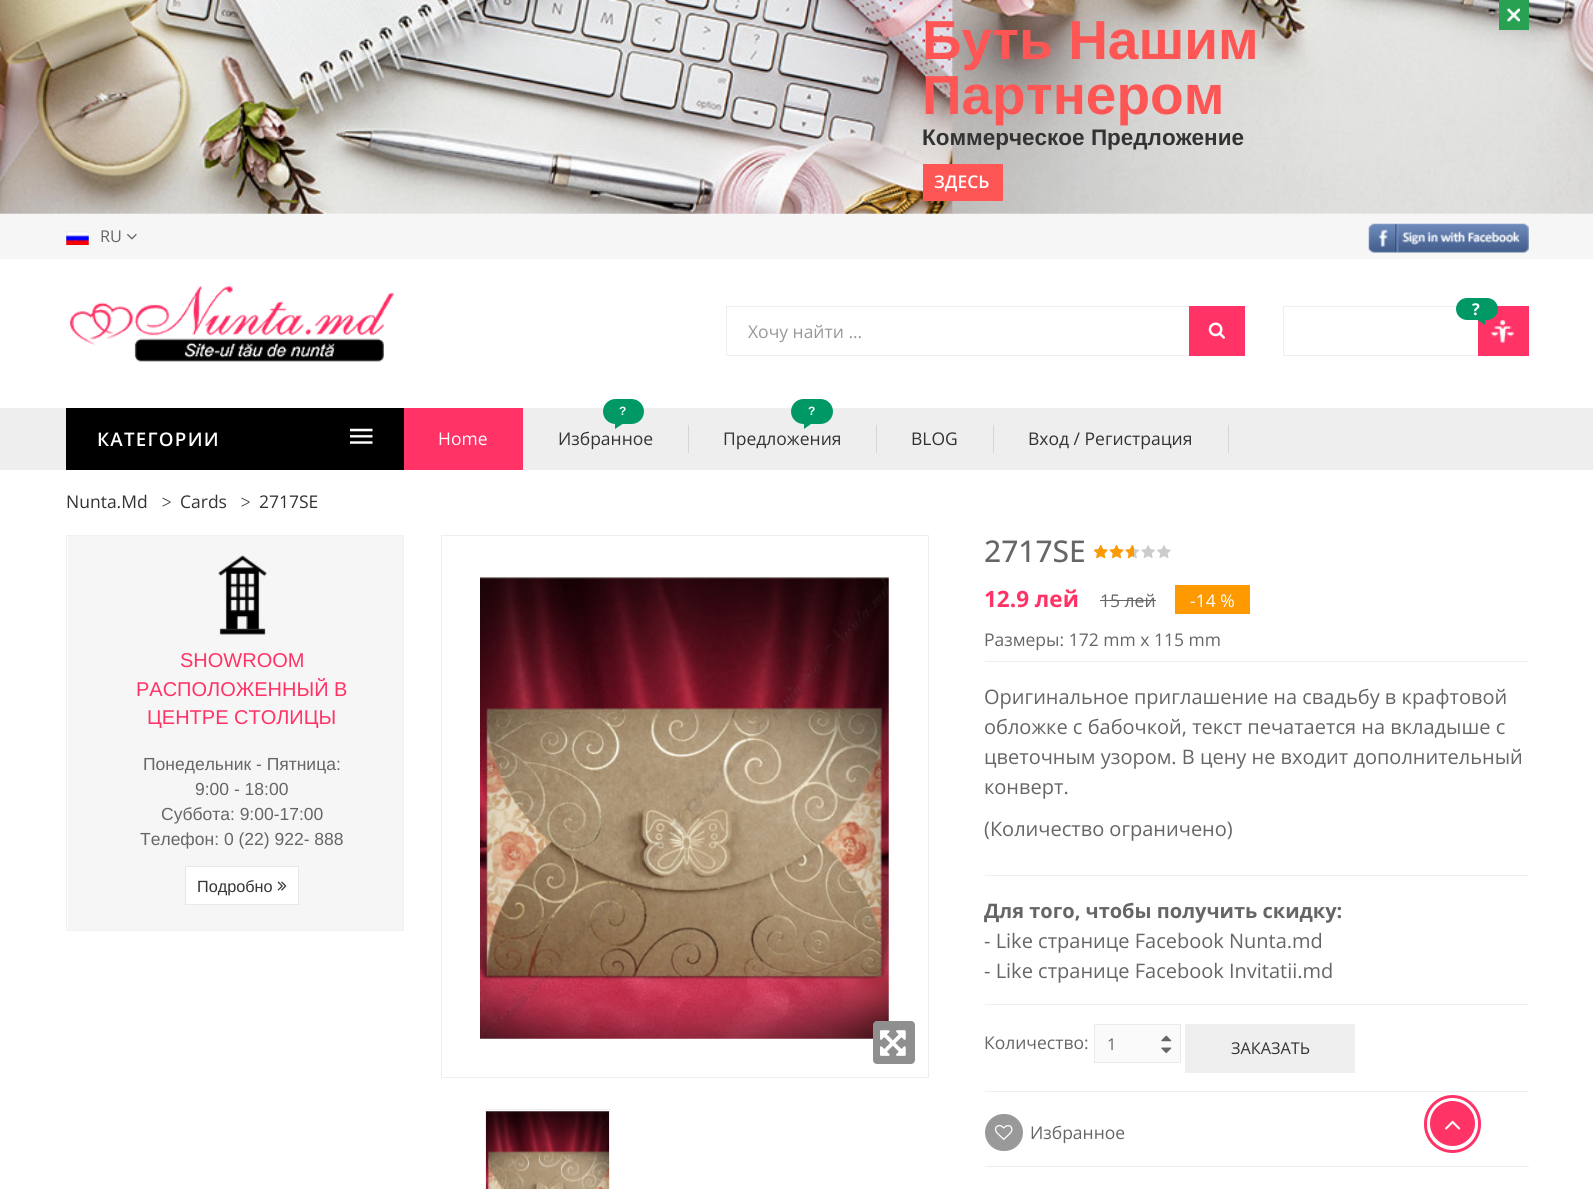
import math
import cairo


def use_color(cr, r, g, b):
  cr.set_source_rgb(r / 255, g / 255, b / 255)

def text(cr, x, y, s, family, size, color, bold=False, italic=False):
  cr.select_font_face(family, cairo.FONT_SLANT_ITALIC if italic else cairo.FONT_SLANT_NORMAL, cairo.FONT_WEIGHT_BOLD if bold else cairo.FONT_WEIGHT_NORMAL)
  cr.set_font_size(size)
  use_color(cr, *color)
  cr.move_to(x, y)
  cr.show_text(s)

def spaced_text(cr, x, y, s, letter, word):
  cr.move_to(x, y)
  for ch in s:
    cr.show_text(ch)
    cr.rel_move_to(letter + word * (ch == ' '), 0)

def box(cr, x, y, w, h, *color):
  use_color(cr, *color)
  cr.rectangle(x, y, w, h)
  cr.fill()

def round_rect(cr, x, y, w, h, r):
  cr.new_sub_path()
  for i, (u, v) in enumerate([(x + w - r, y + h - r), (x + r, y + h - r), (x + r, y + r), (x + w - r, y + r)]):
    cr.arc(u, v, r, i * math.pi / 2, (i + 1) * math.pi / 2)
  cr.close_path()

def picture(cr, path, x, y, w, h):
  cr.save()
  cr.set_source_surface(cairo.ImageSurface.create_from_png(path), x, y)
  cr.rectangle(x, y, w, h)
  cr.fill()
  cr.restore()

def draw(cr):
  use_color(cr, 255, 255, 255)
  cr.paint()
  picture(cr, "img_01.png", 0, 0, 1593, 214)
  box(cr, 1499, 0, 30, 30, 40, 161, 82)
  picture(cr, "img_02.png", 1507, 8, 13, 14)
  box(cr, 923, 164, 80, 37, 254, 86, 84)
  box(cr, 0, 214, 1593, 45, 246, 246, 246)
  picture(cr, "img_03.png", 66, 231, 23, 14)
  picture(cr, "img_04.png", 127, 233, 10, 7)
  picture(cr, "img_05.png", 1368, 223, 161, 30)
  picture(cr, "img_06.png", 69, 286, 325, 76)
  box(cr, 1283, 306, 174, 1, 238, 238, 238)
  box(cr, 1283, 355, 195, 1, 238, 238, 238)
  box(cr, 1283, 306, 1, 50, 238, 238, 238)
  box(cr, 1478, 306, 51, 50, 255, 51, 102)
  use_color(cr, 0, 153, 102)
  round_rect(cr, 1456, 298, 42, 22, 11)
  cr.fill()
  cr.new_path()
  cr.move_to(1485, 320)
  cr.line_to(1485, 325)
  cr.line_to(1477.5, 320)
  cr.close_path()
  cr.fill()
  picture(cr, "img_07.png", 1491, 320, 23, 23)
  cr.rectangle(726.5, 306.5, 518, 49)
  use_color(cr, 238, 238, 238)
  cr.set_line_width(1)
  cr.stroke()
  box(cr, 1189, 306, 56, 50, 255, 51, 102)
  picture(cr, "img_08.png", 1208, 322, 17, 17)
  box(cr, 0, 408, 1593, 62, 238, 238, 238)
  box(cr, 66, 408, 338, 62, 0, 0, 0)
  picture(cr, "img_09.png", 350, 428, 23, 16)
  box(cr, 404, 408, 119, 62, 255, 51, 102)
  use_color(cr, 0, 153, 102)
  round_rect(cr, 603, 399, 41, 25, 12.5)
  cr.fill()
  cr.new_path()
  cr.move_to(615, 424)
  cr.line_to(622.5, 424)
  cr.line_to(615, 429)
  cr.close_path()
  cr.fill()
  box(cr, 688, 425, 1, 28, 214, 214, 214)
  use_color(cr, 0, 153, 102)
  round_rect(cr, 791, 399, 42, 25, 12.5)
  cr.fill()
  cr.new_path()
  cr.move_to(804, 424)
  cr.line_to(811, 424)
  cr.line_to(804, 429)
  cr.close_path()
  cr.fill()
  box(cr, 876, 425, 1, 28, 214, 214, 214)
  box(cr, 993, 425, 1, 28, 214, 214, 214)
  box(cr, 1228, 425, 1, 28, 214, 214, 214)
  cr.rectangle(66.5, 535.5, 337, 395)
  use_color(cr, 241, 241, 241)
  cr.stroke()
  box(cr, 68, 536, 335, 394, 246, 246, 246)
  picture(cr, "img_10.png", 218, 555, 49, 80)
  use_color(cr, 255, 255, 255)
  cr.rectangle(185.5, 866.5, 113, 38)
  cr.fill_preserve()
  use_color(cr, 232, 232, 232)
  cr.stroke()
  picture(cr, "img_11.png", 277, 881, 10, 10)
  cr.rectangle(441.5, 535.5, 487, 542)
  use_color(cr, 238, 238, 238)
  cr.stroke()
  picture(cr, "img_12.png", 480, 575, 409, 464)
  use_color(cr, 143, 143, 143)
  round_rect(cr, 873, 1021, 42, 43, 4)
  cr.fill()
  picture(cr, "img_13.png", 880, 1030, 26, 26)
  cr.rectangle(485.5, 1109.5, 124, 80)
  use_color(cr, 238, 238, 238)
  cr.stroke()
  picture(cr, "img_14.png", 486, 1110, 123, 79)
  picture(cr, "img_15.png", 1094, 545, 77, 14)
  picture(cr, "img_16.png", 1094, 545, 40, 14)
  box(cr, 1100, 600, 56, 1, 102, 102, 102)
  box(cr, 1175, 585, 75, 29, 255, 153, 0)
  box(cr, 985, 661, 544, 1, 238, 238, 238)
  box(cr, 985, 875, 544, 1, 238, 238, 238)
  box(cr, 985, 1004, 544, 1, 238, 238, 238)
  box(cr, 985, 1091, 544, 1, 238, 238, 238)
  use_color(cr, 250, 250, 250)
  cr.rectangle(1094.5, 1024.5, 86, 38)
  cr.fill_preserve()
  use_color(cr, 234, 234, 234)
  cr.stroke()
  picture(cr, "img_17.png", 1161, 1035, 11, 7)
  picture(cr, "img_18.png", 1161, 1047, 11, 7)
  box(cr, 1185, 1024, 170, 49, 239, 239, 239)
  use_color(cr, 153, 153, 153)
  round_rect(cr, 985, 1114, 38, 37, 18.5)
  cr.fill()
  picture(cr, "img_19.png", 995, 1125, 18, 15)
  box(cr, 985, 1166, 544, 1, 238, 238, 238)
  round_rect(cr, 1425.5, 1096.5, 54, 55, 27)
  use_color(cr, 255, 51, 102)
  cr.set_line_width(3)
  cr.stroke()
  cr.arc(1452.5, 1123.5, 22.5, 0, 2 * math.pi)
  cr.fill()
  picture(cr, "img_20.png", 1445, 1120, 16, 10)
  text(cr, 922, 59, "Буть Нашим", "Liberation Sans", 55, (254, 86, 84), bold=True)
  text(cr, 922, 114, "Партнером", "Liberation Sans", 55, (254, 86, 84), bold=True)
  text(cr, 922, 145, "Коммерческое Предложение", "Liberation Sans", 22.5, (51, 51, 51), bold=True)
  text(cr, 934, 188, "ЗДЕСЬ", "Open Sans SemiBold", 17.5, (255, 255, 255))
  text(cr, 100, 242, "RU", "Open Sans", 16.25, (102, 102, 102))
  text(cr, 1472, 315, "?", "Open Sans", 16.25, (255, 255, 255), bold=True)
  text(cr, 748, 338, "Хочу найти ...", "Open Sans", 17.5, (153, 153, 153))
  cr.select_font_face("Open Sans SemiBold")
  cr.set_font_size(18.75)
  use_color(cr, 255, 255, 255)
  spaced_text(cr, 97, 446, "КАТЕГОРИИ", 1.25, 0)
  text(cr, 438, 445, "Home", "Open Sans", 17.5, (255, 255, 255))
  text(cr, 619, 415, "?", "Liberation Sans", 12, (255, 255, 255), bold=True)
  text(cr, 558, 445, "Избранное", "Open Sans", 17.5, (51, 51, 51))
  text(cr, 808, 415, "?", "Liberation Sans", 12, (255, 255, 255), bold=True)
  text(cr, 723, 445, "Предложения", "Open Sans", 17.5, (51, 51, 51))
  text(cr, 911, 445, "BLOG", "Open Sans", 17.5, (51, 51, 51))
  text(cr, 1028, 445, "Вход / Регистрация", "Open Sans", 17.5, (51, 51, 51))
  text(cr, 66, 508, "Nunta.Md", "Open Sans", 17.5, (51, 51, 51))
  text(cr, 161, 508, ">", "Libre Baskerville", 17.5, (51, 51, 51))
  text(cr, 180, 508, "Cards", "Open Sans", 17.5, (51, 51, 51))
  text(cr, 240, 508, ">", "Libre Baskerville", 17.5, (51, 51, 51))
  text(cr, 259, 508, "2717SE", "Open Sans", 17.5, (51, 51, 51))
  text(cr, 180, 667, "SHOWROOM", "Liberation Sans", 20, (255, 51, 102))
  text(cr, 136, 696, "РАСПОЛОЖЕННЫЙ В", "Liberation Sans", 20, (255, 51, 102))
  text(cr, 147, 724, "ЦЕНТРЕ СТОЛИЦЫ", "Liberation Sans", 20, (255, 51, 102))
  text(cr, 143, 770, "Понедельник - Пятница:", "Liberation Sans", 17.5, (102, 102, 102))
  text(cr, 195, 795, "9:00 - 18:00", "Liberation Sans", 17.5, (102, 102, 102))
  text(cr, 161, 820, "Суббота: 9:00-17:00", "Liberation Sans", 17.5, (102, 102, 102))
  text(cr, 140, 845, "Телефон: 0 (22) 922- 888", "Liberation Sans", 17.5, (102, 102, 102))
  text(cr, 197, 892, "Подробно", "Liberation Sans", 16.25, (51, 51, 51))
  text(cr, 984, 562, "2717SE", "Open Sans Medium", 30, (102, 102, 102))
  text(cr, 984, 607, "12.9 лей", "Open Sans", 22.5, (255, 51, 102), bold=True)
  text(cr, 1100, 607, "15 лей", "Open Sans", 17.5, (102, 102, 102))
  text(cr, 1190, 607, "-14 %", "Open Sans", 17.5, (255, 255, 255))
  text(cr, 984, 646, "Размеры: 172 mm x 115 mm", "Open Sans", 17.5, (102, 102, 102))
  text(cr, 984, 704, "Оригинальное приглашение на свадьбу в крафтовой", "Open Sans", 20, (102, 102, 102))
  text(cr, 984, 734, "обложке с бабочкой, текст печатается на вкладыше с", "Open Sans", 20, (102, 102, 102))
  text(cr, 984, 764, "цветочным узором. В цену не входит дополнительный", "Open Sans", 20, (102, 102, 102))
  text(cr, 984, 794, "конверт.", "Open Sans", 20, (102, 102, 102))
  text(cr, 984, 836, "(Количество ограничено)", "Open Sans", 20, (102, 102, 102))
  text(cr, 984, 918, "Для того, чтобы получить скидку:", "Open Sans", 20, (102, 102, 102), bold=True)
  text(cr, 984, 948, "- Like странице Facebook Nunta.md", "Open Sans", 20, (102, 102, 102))
  text(cr, 984, 978, "- Like странице Facebook Invitatii.md", "Open Sans", 20, (102, 102, 102))
  text(cr, 984, 1049, "Количество:", "Open Sans", 17.5, (102, 102, 102))
  text(cr, 1107, 1050, "1", "Open Sans", 16.25, (102, 102, 102))
  text(cr, 1231, 1054, "ЗАКАЗАТЬ", "Open Sans", 16.25, (51, 51, 51))
  text(cr, 1030, 1139, "Избранное", "Open Sans", 17.5, (102, 102, 102))


surface = cairo.ImageSurface(cairo.FORMAT_RGB24, 1593, 1189)
cr = cairo.Context(surface)
options = cairo.FontOptions()
options.set_hint_metrics(cairo.HINT_METRICS_OFF)
options.set_hint_style(cairo.HINT_STYLE_NONE)
cr.set_font_options(options)
cr.set_miter_limit(4)
draw(cr)
surface.write_to_png("out.png")
